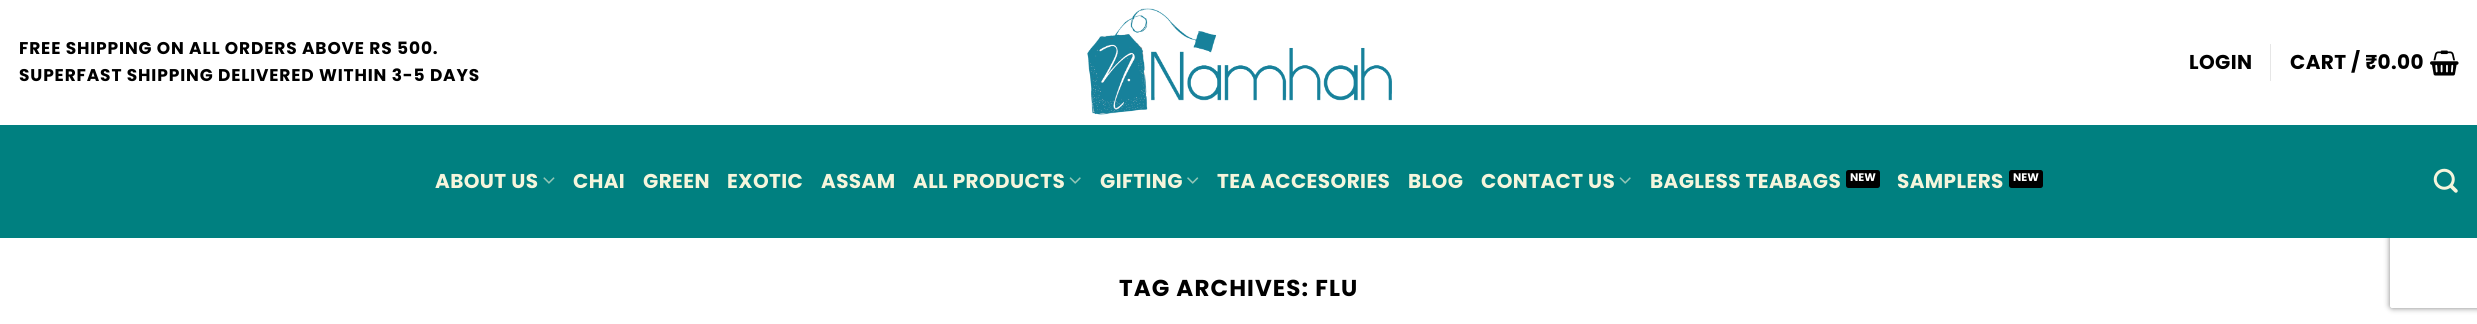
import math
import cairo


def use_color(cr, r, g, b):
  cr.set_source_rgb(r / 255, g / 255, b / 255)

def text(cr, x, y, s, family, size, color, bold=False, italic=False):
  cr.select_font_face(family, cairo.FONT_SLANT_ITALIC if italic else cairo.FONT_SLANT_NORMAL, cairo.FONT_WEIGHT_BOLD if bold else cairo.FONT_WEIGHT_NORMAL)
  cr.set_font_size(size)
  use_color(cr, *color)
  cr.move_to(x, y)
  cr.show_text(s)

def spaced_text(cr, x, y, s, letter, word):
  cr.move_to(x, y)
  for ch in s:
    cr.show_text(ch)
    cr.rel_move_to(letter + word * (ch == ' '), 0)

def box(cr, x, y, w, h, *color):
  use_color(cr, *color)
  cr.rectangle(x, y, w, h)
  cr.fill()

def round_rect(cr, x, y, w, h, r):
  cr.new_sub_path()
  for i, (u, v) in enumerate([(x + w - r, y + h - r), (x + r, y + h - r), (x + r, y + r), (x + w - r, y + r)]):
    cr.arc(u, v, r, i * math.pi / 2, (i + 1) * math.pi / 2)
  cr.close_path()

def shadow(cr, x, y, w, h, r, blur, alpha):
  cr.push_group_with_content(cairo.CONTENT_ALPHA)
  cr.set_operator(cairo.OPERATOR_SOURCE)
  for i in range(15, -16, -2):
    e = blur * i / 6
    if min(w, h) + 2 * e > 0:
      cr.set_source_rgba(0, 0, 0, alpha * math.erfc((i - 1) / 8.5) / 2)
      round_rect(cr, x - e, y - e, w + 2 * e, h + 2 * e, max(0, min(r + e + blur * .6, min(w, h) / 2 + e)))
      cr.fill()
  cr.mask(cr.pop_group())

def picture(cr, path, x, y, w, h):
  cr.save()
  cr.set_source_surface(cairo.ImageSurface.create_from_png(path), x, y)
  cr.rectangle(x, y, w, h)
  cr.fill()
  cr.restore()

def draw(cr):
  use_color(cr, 255, 255, 255)
  cr.paint()
  picture(cr, "img_01.png", 1087, 8, 305, 107)
  box(cr, 2270, 44, 1, 37, 230, 230, 230)
  picture(cr, "img_02.png", 2430, 50, 29, 26)
  cr.save()
  cr.set_fill_rule(cairo.FILL_RULE_EVEN_ODD)
  cr.new_path()
  cr.move_to(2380, 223)
  cr.line_to(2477, 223)
  cr.line_to(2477, 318)
  cr.line_to(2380, 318)
  cr.close_path()
  cr.move_to(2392.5, 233)
  cr.line_to(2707.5, 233)
  cr.curve_to(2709, 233, 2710, 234, 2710, 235.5)
  cr.line_to(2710, 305.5)
  cr.curve_to(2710, 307, 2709, 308, 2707.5, 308)
  cr.line_to(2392.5, 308)
  cr.curve_to(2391, 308, 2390, 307, 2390, 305.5)
  cr.line_to(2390, 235.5)
  cr.curve_to(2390, 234, 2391, 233, 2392.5, 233)
  cr.close_path()
  cr.clip()
  use_color(cr, 128, 128, 128)
  shadow(cr, 2390, 233, 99, 75, 2.5, 3, 1)
  cr.restore()
  box(cr, 0, 125, 2477, 113, 0, 128, 128)
  picture(cr, "img_03.png", 543, 177, 12, 7)
  picture(cr, "img_04.png", 1069, 177, 12, 7)
  picture(cr, "img_05.png", 1187, 177, 12, 7)
  picture(cr, "img_04.png", 1619, 177, 12, 7)
  use_color(cr, 0, 0, 0)
  round_rect(cr, 1846, 170, 34, 18, 2.5)
  cr.fill()
  round_rect(cr, 2009, 170, 34, 18, 2.5)
  cr.fill()
  picture(cr, "img_06.png", 2433, 168, 25, 25)
  cr.select_font_face("Poppins", cairo.FONT_SLANT_NORMAL, cairo.FONT_WEIGHT_BOLD)
  cr.set_font_size(17)
  spaced_text(cr, 19, 54, "FREE SHIPPING ON ALL ORDERS ABOVE RS 500.", 0.85, 0)
  spaced_text(cr, 19, 81, "SUPERFAST SHIPPING DELIVERED WITHIN 3-5 DAYS", 0.85, 0)
  cr.set_font_size(20)
  spaced_text(cr, 2189, 69, "LOGIN", 0.4, 0)
  spaced_text(cr, 2290, 69, "CART / ₹0.00", 0.4, 0)
  use_color(cr, 245, 245, 220)
  spaced_text(cr, 435, 188, "ABOUT US", 0.4, 0)
  spaced_text(cr, 573, 188, "CHAI", 0.4, 0)
  spaced_text(cr, 643, 188, "GREEN", 0.4, 0)
  spaced_text(cr, 727, 188, "EXOTIC", 0.4, 0)
  spaced_text(cr, 821, 188, "ASSAM", 0.4, 0)
  spaced_text(cr, 913, 188, "ALL PRODUCTS", 0.4, 0)
  spaced_text(cr, 1100, 188, "GIFTING", 0.4, 0)
  spaced_text(cr, 1217, 188, "TEA ACCESORIES", 0.4, 0)
  spaced_text(cr, 1408, 188, "BLOG", 0.4, 0)
  spaced_text(cr, 1481, 188, "CONTACT US", 0.4, 0)
  spaced_text(cr, 1650, 188, "BAGLESS TEABAGS", 0.4, 0)
  text(cr, 1850, 181, "NEW", "Poppins", 11, (255, 255, 255), bold=True)
  cr.set_font_size(20)
  use_color(cr, 245, 245, 220)
  spaced_text(cr, 1897, 188, "SAMPLERS", 0.4, 0)
  text(cr, 2013, 181, "NEW", "Poppins", 11, (255, 255, 255), bold=True)
  cr.set_font_size(23)
  use_color(cr, 0, 0, 0)
  spaced_text(cr, 1119, 296, "TAG ARCHIVES: FLU", 1.1, 0)


surface = cairo.ImageSurface(cairo.FORMAT_RGB24, 2477, 324)
cr = cairo.Context(surface)
options = cairo.FontOptions()
options.set_hint_metrics(cairo.HINT_METRICS_OFF)
options.set_hint_style(cairo.HINT_STYLE_NONE)
cr.set_font_options(options)
cr.set_miter_limit(4)
draw(cr)
surface.write_to_png("out.png")
